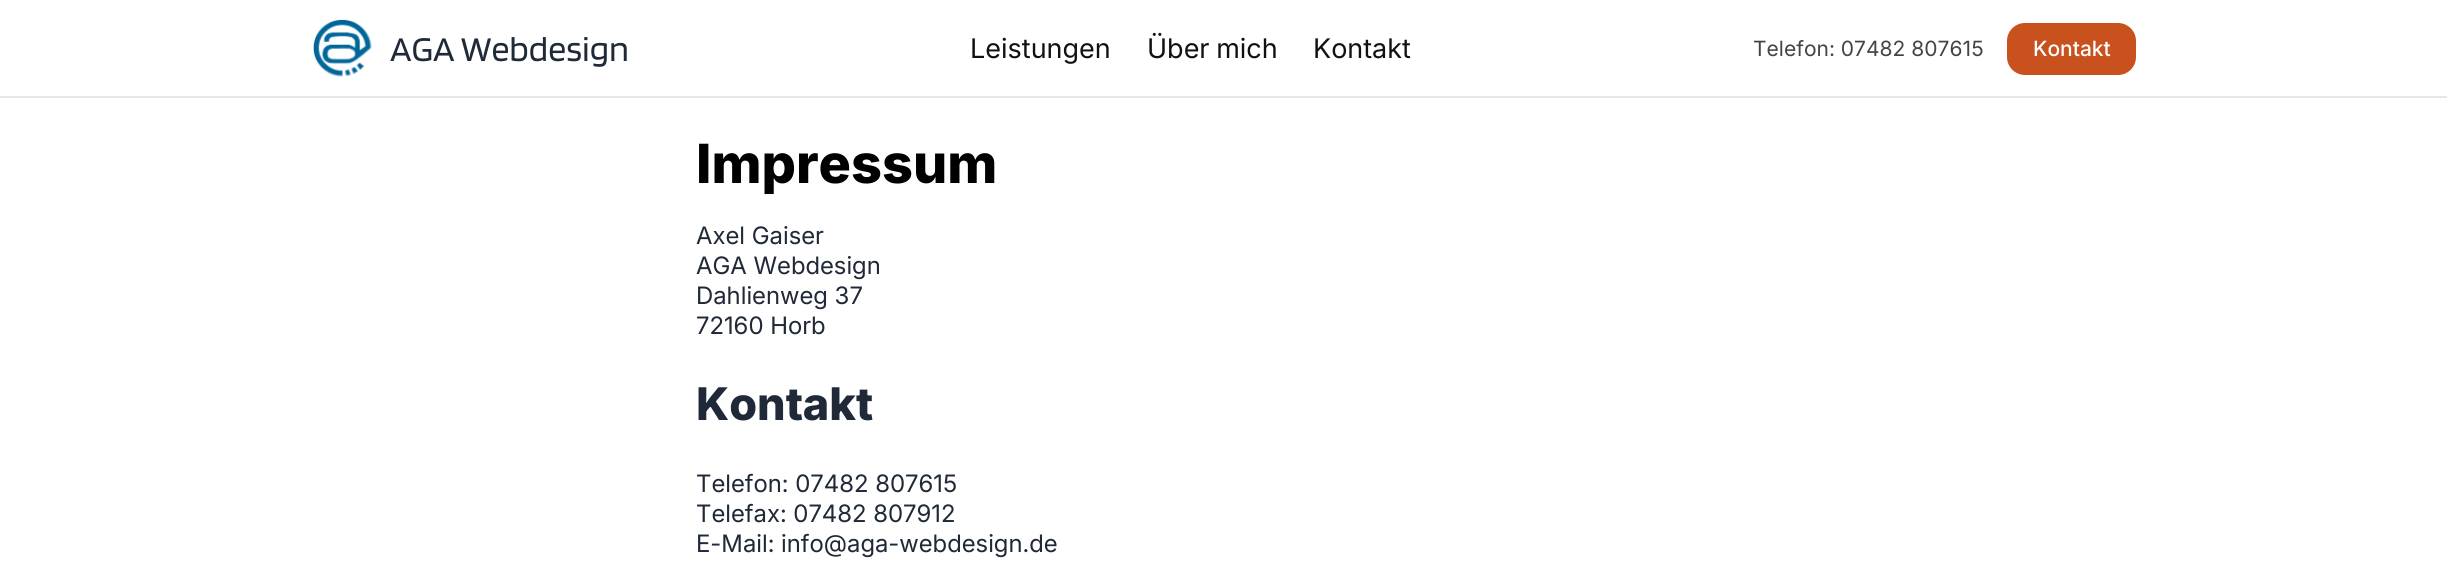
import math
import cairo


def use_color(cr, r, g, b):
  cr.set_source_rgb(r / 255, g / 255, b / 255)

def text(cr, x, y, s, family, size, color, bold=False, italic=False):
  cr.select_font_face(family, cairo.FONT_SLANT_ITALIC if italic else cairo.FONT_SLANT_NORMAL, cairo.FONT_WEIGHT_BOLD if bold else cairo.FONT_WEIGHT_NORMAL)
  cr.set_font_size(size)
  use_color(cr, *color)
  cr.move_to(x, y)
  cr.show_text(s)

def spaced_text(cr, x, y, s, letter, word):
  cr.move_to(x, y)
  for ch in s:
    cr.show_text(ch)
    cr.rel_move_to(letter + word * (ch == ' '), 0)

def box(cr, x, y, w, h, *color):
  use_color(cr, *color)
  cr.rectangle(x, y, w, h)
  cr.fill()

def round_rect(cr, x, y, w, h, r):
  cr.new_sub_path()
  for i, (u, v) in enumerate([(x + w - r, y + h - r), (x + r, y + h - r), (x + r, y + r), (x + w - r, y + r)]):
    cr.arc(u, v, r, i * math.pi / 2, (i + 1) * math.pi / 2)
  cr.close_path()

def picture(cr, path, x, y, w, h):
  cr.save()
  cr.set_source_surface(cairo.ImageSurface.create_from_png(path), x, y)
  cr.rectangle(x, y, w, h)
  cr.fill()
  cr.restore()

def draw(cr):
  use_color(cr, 255, 255, 255)
  cr.paint()
  box(cr, 0, 96, 2447, 2, 229, 231, 235)
  picture(cr, "img_01.png", 313, 19, 59, 58)
  use_color(cr, 200, 81, 30)
  round_rect(cr, 2007, 23, 129, 52, 18)
  cr.fill()
  text(cr, 390, 61, "AGA Webdesign", "Blinker", 36, (31, 41, 55))
  text(cr, 970, 58, "Leistungen", "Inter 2", 27, (17, 17, 17))
  spaced_text(cr, 1147, 58, "Über mich", 0, -1)
  text(cr, 1313, 58, "Kontakt", "Inter 2", 27, (17, 17, 17))
  text(cr, 1753, 56, "Telefon: 07482 807615", "Inter 2", 21, (68, 68, 68))
  text(cr, 2033, 56, "Kontakt", "Inter Medium", 21, (255, 255, 255))
  text(cr, 696, 183, "Impressum", "Inter ExtraBold", 54, (0, 0, 0))
  text(cr, 696, 244, "Axel Gaiser", "Inter", 24, (31, 41, 55))
  text(cr, 696, 274, "AGA Webdesign", "Inter", 24, (31, 41, 55))
  text(cr, 696, 304, "Dahlienweg 37", "Inter", 24, (31, 41, 55))
  text(cr, 696, 334, "72160 Horb", "Inter", 24, (31, 41, 55))
  text(cr, 696, 420, "Kontakt", "Inter ExtraBold", 45, (31, 41, 55))
  text(cr, 696, 492, "Telefon: 07482 807615", "Inter", 24, (31, 41, 55))
  text(cr, 696, 522, "Telefax: 07482 807912", "Inter", 24, (31, 41, 55))
  text(cr, 696, 552, "E-Mail: info@aga-webdesign.de", "Inter", 24, (31, 41, 55))


surface = cairo.ImageSurface(cairo.FORMAT_RGB24, 2447, 575)
cr = cairo.Context(surface)
options = cairo.FontOptions()
options.set_hint_metrics(cairo.HINT_METRICS_OFF)
options.set_hint_style(cairo.HINT_STYLE_NONE)
cr.set_font_options(options)
cr.set_miter_limit(4)
draw(cr)
surface.write_to_png("out.png")
